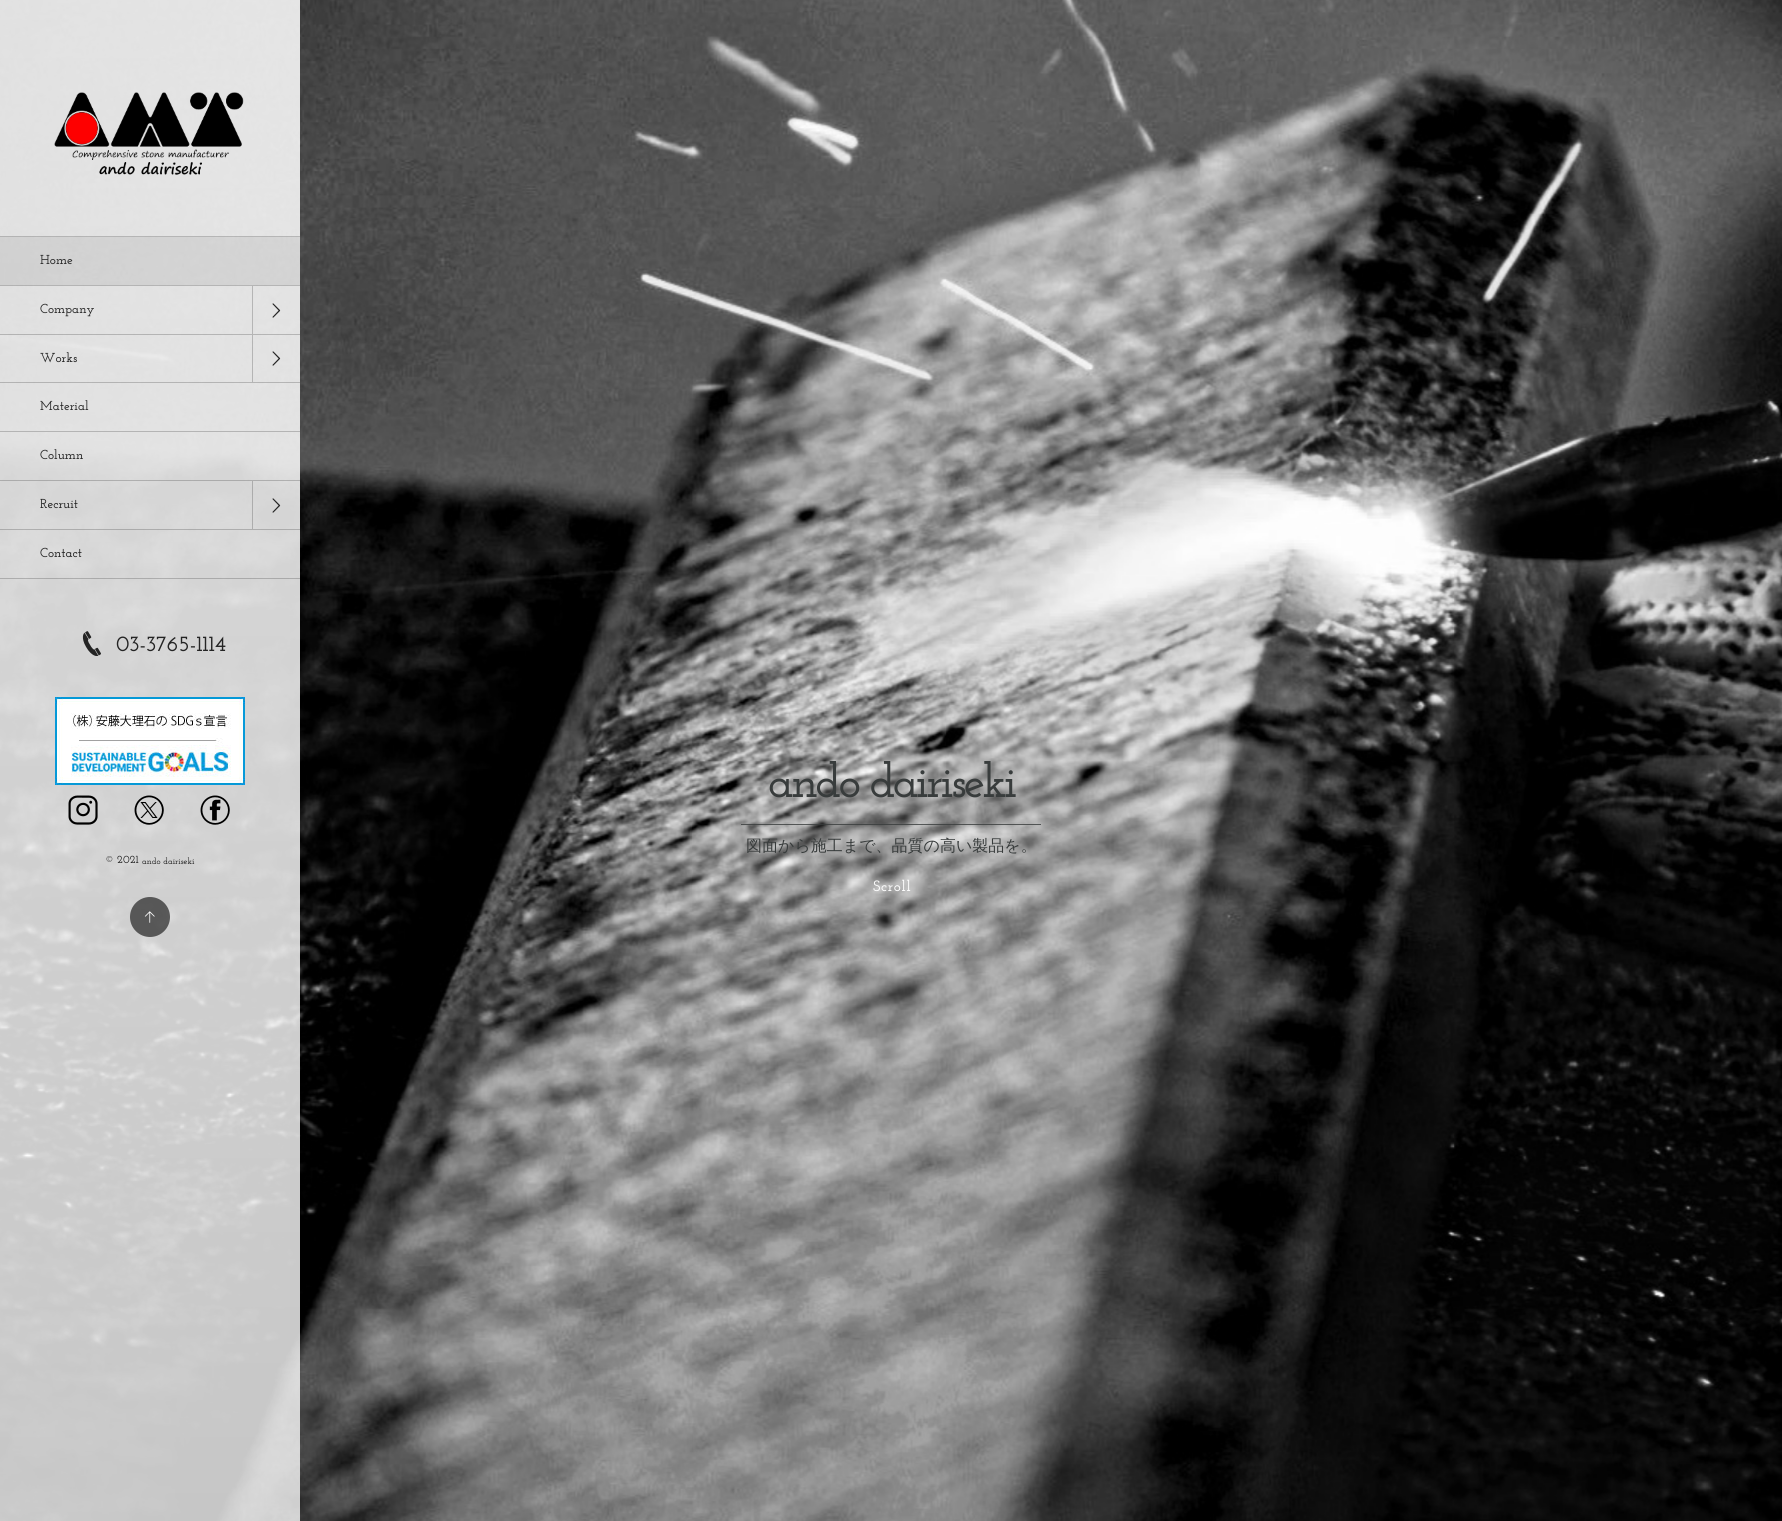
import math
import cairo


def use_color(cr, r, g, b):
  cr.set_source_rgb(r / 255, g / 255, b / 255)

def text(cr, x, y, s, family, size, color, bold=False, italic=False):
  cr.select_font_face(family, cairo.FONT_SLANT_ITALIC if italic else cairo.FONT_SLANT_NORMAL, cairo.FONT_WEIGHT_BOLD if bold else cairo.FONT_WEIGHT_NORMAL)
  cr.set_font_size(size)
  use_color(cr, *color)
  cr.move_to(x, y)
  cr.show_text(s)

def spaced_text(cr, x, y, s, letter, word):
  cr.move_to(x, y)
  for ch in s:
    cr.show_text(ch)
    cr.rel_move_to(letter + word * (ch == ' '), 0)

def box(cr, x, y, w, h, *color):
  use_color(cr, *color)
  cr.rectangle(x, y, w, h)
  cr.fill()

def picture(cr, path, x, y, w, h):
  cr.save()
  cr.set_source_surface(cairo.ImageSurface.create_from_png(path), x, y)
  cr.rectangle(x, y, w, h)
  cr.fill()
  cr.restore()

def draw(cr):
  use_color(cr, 255, 255, 255)
  cr.paint()
  picture(cr, "img_11.png", 0, 0, 1782, 1521)
  cr.set_source_rgba(1, 1, 1, 0.72)
  cr.rectangle(0, 0, 300, 1521)
  cr.fill()
  gradient = cairo.LinearGradient(150, 0, 150, 1521)
  gradient.add_color_stop_rgba(0, 1, 1, 1, 0.52)
  gradient.add_color_stop_rgba(1, 1, 1, 1, 0.2)
  cr.set_source(gradient)
  cr.rectangle(0, 0, 300, 1521)
  cr.fill()
  picture(cr, "img_01.png", 54, 92, 190, 83)
  cr.set_source_rgba(0.141, 0.141, 0.141, 0.24)
  cr.rectangle(0, 236, 300, 1)
  cr.fill()
  cr.rectangle(0, 285, 300, 1)
  cr.fill()
  cr.set_source_rgba(0.141, 0.141, 0.141, 0.08)
  cr.rectangle(0, 237, 300, 48)
  cr.fill()
  cr.set_source_rgba(0.141, 0.141, 0.141, 0.24)
  cr.rectangle(0, 334, 300, 1)
  cr.fill()
  box(cr, 252, 286, 1, 48, 181, 181, 181)
  picture(cr, "img_02.png", 272, 303, 9, 15)
  cr.set_source_rgba(0.141, 0.141, 0.141, 0.24)
  cr.rectangle(0, 382, 300, 1)
  cr.fill()
  cr.rectangle(252, 335, 1, 47)
  cr.fill()
  picture(cr, "img_03.png", 272, 351, 9, 15)
  box(cr, 0, 431, 300, 1, 180, 180, 180)
  cr.set_source_rgba(0.141, 0.141, 0.141, 0.24)
  cr.rectangle(0, 480, 300, 1)
  cr.fill()
  cr.rectangle(0, 529, 300, 1)
  cr.fill()
  cr.rectangle(252, 481, 1, 48)
  cr.fill()
  picture(cr, "img_04.png", 272, 498, 9, 15)
  cr.rectangle(0, 578, 300, 1)
  cr.fill()
  picture(cr, "img_05.png", 82, 631, 19, 25)
  picture(cr, "img_06.png", 55, 697, 190, 88)
  picture(cr, "img_07.png", 68, 795, 30, 30)
  picture(cr, "img_08.png", 134, 795, 30, 30)
  picture(cr, "img_09.png", 200, 795, 30, 30)
  cr.set_source_rgba(0.141, 0.141, 0.141, 0.7)
  cr.arc(150, 917, 20, 0, 2 * math.pi)
  cr.fill()
  picture(cr, "img_10.png", 144, 911, 11, 12)
  cr.set_source_rgba(0.22, 0.235, 0.235, 0.8)
  cr.rectangle(741, 824, 300, 1)
  cr.fill()
  text(cr, 40, 264, "Home", "Josefin Slab SemiBold", 13, (36, 36, 36))
  text(cr, 40, 313, "Company", "Josefin Slab SemiBold", 13, (36, 36, 36))
  text(cr, 40, 362, "Works", "Josefin Slab SemiBold", 13, (36, 36, 36))
  text(cr, 40, 410, "Material", "Josefin Slab SemiBold", 13, (36, 36, 36))
  text(cr, 40, 459, "Column", "Josefin Slab SemiBold", 13, (36, 36, 36))
  text(cr, 40, 508, "Recruit", "Josefin Slab SemiBold", 13, (36, 36, 36))
  text(cr, 40, 557, "Contact", "Josefin Slab SemiBold", 13, (36, 36, 36))
  text(cr, 116, 651, "03-3765-1114", "Josefin Slab SemiBold", 22, (36, 36, 36))
  text(cr, 105, 863, "© 2021", "Josefin Slab SemiBold", 11, (36, 36, 36))
  text(cr, 142, 864, "ando dairiseki", "Josefin Slab SemiBold", 8.75, (36, 36, 36))
  cr.set_font_size(48)
  use_color(cr, 56, 60, 60)
  spaced_text(cr, 768, 797, "ando dairiseki", -2.9, 0)
  text(cr, 746, 851, "図面から施工まで、品質の高い製品を。", "WenQuanYi Zen Hei Medium", 16, (56, 60, 60))
  cr.select_font_face("Josefin Slab SemiBold")
  cr.set_font_size(15)
  use_color(cr, 255, 255, 255)
  spaced_text(cr, 873, 891, "Scroll", 0.75, 0)


surface = cairo.ImageSurface(cairo.FORMAT_RGB24, 1782, 1521)
cr = cairo.Context(surface)
options = cairo.FontOptions()
options.set_hint_metrics(cairo.HINT_METRICS_OFF)
options.set_hint_style(cairo.HINT_STYLE_NONE)
cr.set_font_options(options)
cr.set_miter_limit(4)
draw(cr)
surface.write_to_png("out.png")
